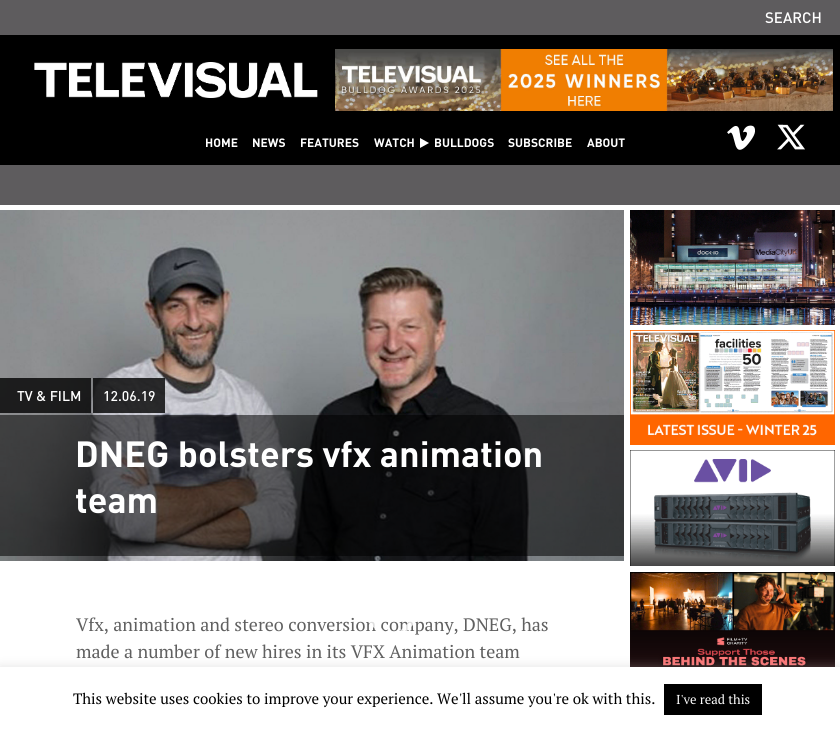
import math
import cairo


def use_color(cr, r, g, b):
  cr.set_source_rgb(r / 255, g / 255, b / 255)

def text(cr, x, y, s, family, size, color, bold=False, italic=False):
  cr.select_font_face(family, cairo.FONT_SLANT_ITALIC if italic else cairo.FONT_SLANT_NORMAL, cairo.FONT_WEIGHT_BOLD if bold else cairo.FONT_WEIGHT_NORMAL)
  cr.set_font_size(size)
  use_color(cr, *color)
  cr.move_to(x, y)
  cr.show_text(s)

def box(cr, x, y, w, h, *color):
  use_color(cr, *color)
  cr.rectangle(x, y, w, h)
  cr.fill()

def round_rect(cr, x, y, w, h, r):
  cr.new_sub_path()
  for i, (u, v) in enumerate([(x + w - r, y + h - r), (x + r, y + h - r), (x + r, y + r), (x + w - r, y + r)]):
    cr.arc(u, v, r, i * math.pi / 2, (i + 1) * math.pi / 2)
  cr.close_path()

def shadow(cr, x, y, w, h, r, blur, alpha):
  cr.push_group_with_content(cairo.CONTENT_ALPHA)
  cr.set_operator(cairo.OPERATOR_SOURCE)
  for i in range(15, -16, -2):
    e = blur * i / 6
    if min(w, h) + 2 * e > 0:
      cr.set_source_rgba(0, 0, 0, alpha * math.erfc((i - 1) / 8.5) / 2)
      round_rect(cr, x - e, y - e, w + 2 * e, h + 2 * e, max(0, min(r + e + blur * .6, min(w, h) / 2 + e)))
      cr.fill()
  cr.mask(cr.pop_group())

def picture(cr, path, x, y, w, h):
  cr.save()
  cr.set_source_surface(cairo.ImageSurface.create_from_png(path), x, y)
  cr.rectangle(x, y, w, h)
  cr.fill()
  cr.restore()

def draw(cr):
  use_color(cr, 0, 0, 0)
  cr.paint()
  box(cr, 0, 0, 840, 35, 94, 92, 94)
  picture(cr, "img_01.png", 34, 62, 284, 36)
  picture(cr, "img_02.png", 335, 49, 498, 62)
  use_color(cr, 255, 255, 255)
  cr.new_path()
  cr.move_to(420, 148)
  cr.line_to(420, 138)
  cr.line_to(429, 143)
  cr.close_path()
  cr.fill()
  picture(cr, "img_03.png", 727, 125, 28, 25)
  picture(cr, "img_04.png", 777, 124, 28, 26)
  box(cr, 0, 165, 840, 40, 94, 92, 94)
  box(cr, 0, 205, 840, 462, 255, 255, 255)
  picture(cr, "img_05.png", 0, 210, 624, 351)
  cr.set_source_rgba(0, 0, 0, 0.8)
  cr.rectangle(0, 378, 91, 35)
  cr.fill()
  cr.rectangle(93, 378, 72, 35)
  cr.fill()
  cr.set_source_rgba(0, 0, 0, 0.55)
  cr.rectangle(0, 415, 624, 141)
  cr.fill()
  picture(cr, "img_06.png", 630, 210, 205, 115)
  picture(cr, "img_07.png", 630, 330, 205, 115)
  picture(cr, "img_08.png", 630, 450, 205, 116)
  picture(cr, "img_09.png", 630, 572, 205, 95)
  use_color(cr, 172, 171, 171)
  shadow(cr, 0, 666, 840, 65, 0, 5, 0.3)
  box(cr, 0, 667, 840, 65, 255, 255, 255)
  box(cr, 664, 684, 98, 31, 0, 0, 0)
  text(cr, 765, 23, "SEARCH", "DIN Medium", 15, (255, 255, 255))
  text(cr, 205, 147, "HOME", "DIN", 12, (255, 255, 255), bold=True)
  text(cr, 252, 147, "NEWS", "DIN", 12, (255, 255, 255), bold=True)
  text(cr, 300, 147, "FEATURES", "DIN", 12, (255, 255, 255), bold=True)
  text(cr, 374, 147, "WATCH", "DIN", 12, (255, 255, 255), bold=True)
  text(cr, 434, 147, "BULLDOGS", "DIN", 12, (255, 255, 255), bold=True)
  text(cr, 508, 147, "SUBSCRIBE", "DIN", 12, (255, 255, 255), bold=True)
  text(cr, 587, 147, "ABOUT", "DIN", 12, (255, 255, 255), bold=True)
  text(cr, 17, 401, "TV & FILM", "DIN Medium", 14, (255, 255, 255))
  text(cr, 103, 401, "12.06.19", "DIN Medium", 14, (255, 255, 255))
  text(cr, 75, 467, "DNEG bolsters vfx animation", "DIN", 36, (255, 255, 255), bold=True)
  text(cr, 75, 513, "team", "DIN", 36, (255, 255, 255), bold=True)
  text(cr, 76, 631, "Vfx, animation and stereo conversion company, DNEG, has", "PT Serif", 18, (96, 96, 96))
  text(cr, 76, 658, "made a number of new hires in its VFX Animation team", "PT Serif", 18, (96, 96, 96))
  cr.set_source_rgba(1, 1, 1, 0.8)
  cr.new_path()
  cr.move_to(424, 607)
  cr.line_to(427.5, 610.5)
  cr.line_to(392, 646)
  cr.line_to(388.5, 642.5)
  cr.close_path()
  cr.fill()
  cr.new_path()
  cr.move_to(360.5, 607)
  cr.line_to(395.5, 642.5)
  cr.line_to(392, 646)
  cr.line_to(356.5, 610.5)
  cr.close_path()
  cr.fill()
  text(cr, 73, 704, "This website uses cookies to improve your experience. We'll assume you're ok with this.", "PT Serif", 15, (0, 0, 0))
  text(cr, 676, 704, "I've read this", "PT Serif", 13, (255, 255, 255))


surface = cairo.ImageSurface(cairo.FORMAT_RGB24, 840, 732)
cr = cairo.Context(surface)
options = cairo.FontOptions()
options.set_hint_metrics(cairo.HINT_METRICS_OFF)
options.set_hint_style(cairo.HINT_STYLE_NONE)
cr.set_font_options(options)
cr.set_miter_limit(4)
draw(cr)
surface.write_to_png("out.png")
